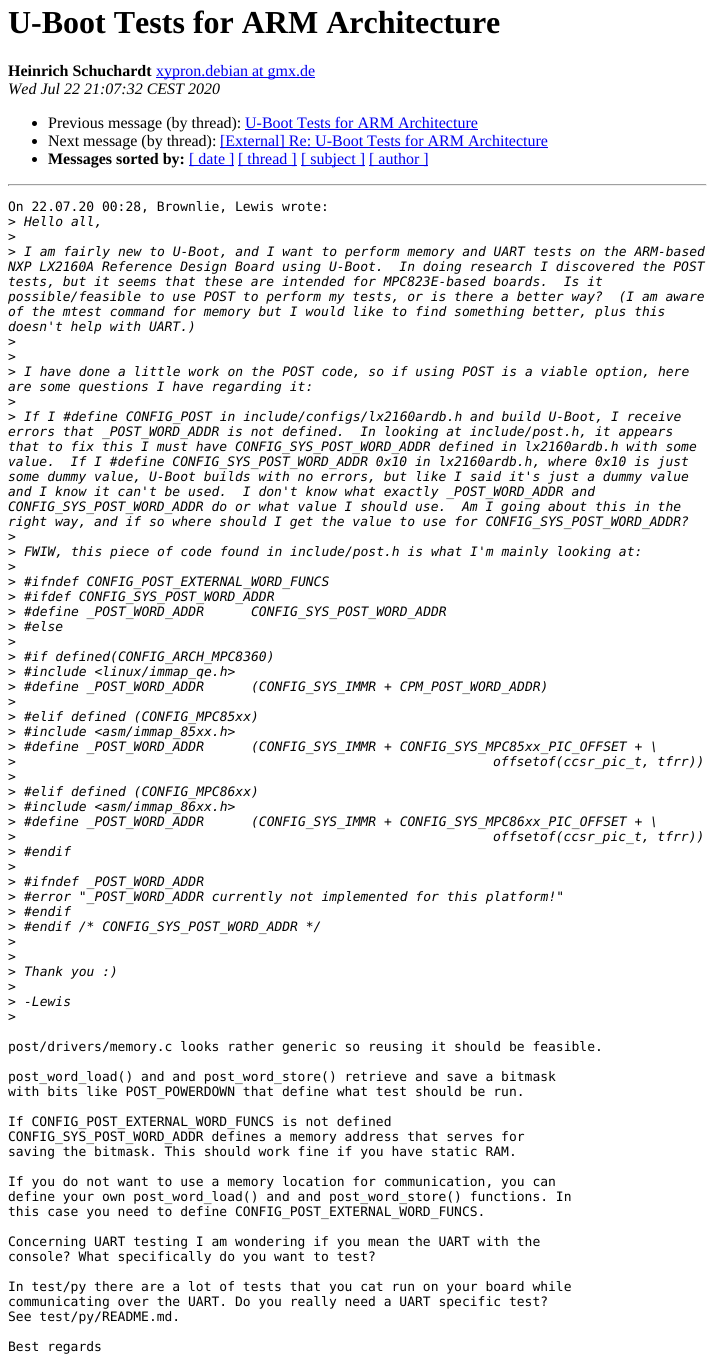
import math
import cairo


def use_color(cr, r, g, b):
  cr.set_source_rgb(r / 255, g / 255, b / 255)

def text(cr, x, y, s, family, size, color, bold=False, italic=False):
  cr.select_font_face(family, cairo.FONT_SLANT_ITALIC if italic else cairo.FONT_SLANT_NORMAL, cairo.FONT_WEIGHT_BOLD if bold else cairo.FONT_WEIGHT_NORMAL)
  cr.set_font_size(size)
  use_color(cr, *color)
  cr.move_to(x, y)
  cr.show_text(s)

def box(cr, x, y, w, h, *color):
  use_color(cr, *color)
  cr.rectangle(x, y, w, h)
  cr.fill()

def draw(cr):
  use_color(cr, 255, 255, 255)
  cr.paint()
  box(cr, 156, 77, 159, 1, 0, 0, 238)
  use_color(cr, 0, 0, 0)
  cr.arc(34.5, 123.5, 2.5, 0, 2 * math.pi)
  cr.fill()
  box(cr, 245, 129, 233, 1, 0, 0, 238)
  use_color(cr, 0, 0, 0)
  cr.arc(34.5, 141.5, 2.5, 0, 2 * math.pi)
  cr.fill()
  box(cr, 220, 147, 328, 1, 0, 0, 238)
  use_color(cr, 0, 0, 0)
  cr.arc(34.5, 159.5, 2.5, 0, 2 * math.pi)
  cr.fill()
  box(cr, 189, 165, 45, 1, 0, 0, 238)
  box(cr, 238, 165, 59, 1, 0, 0, 238)
  box(cr, 301, 165, 64, 1, 0, 0, 238)
  box(cr, 369, 165, 59, 1, 0, 0, 238)
  box(cr, 8, 184, 699, 1, 159, 159, 159)
  box(cr, 706, 184, 1, 2, 238, 238, 238)
  box(cr, 8, 185, 699, 1, 238, 238, 238)
  box(cr, 8, 184, 1, 2, 159, 159, 159)
  text(cr, 8, 33, "U-Boot Tests for ARM Architecture", "Liberation Serif", 32, (0, 0, 0), bold=True)
  text(cr, 8, 76, "Heinrich Schuchardt", "Liberation Serif", 16, (0, 0, 0), bold=True)
  text(cr, 156, 76, "xypron.debian at gmx.de", "Liberation Serif", 16, (0, 0, 238))
  text(cr, 8, 94, "Wed Jul 22 21:07:32 CEST 2020", "Liberation Serif", 16, (0, 0, 0), italic=True)
  text(cr, 48, 128, "Previous message (by thread):", "Liberation Serif", 16, (0, 0, 0))
  text(cr, 245, 128, "U-Boot Tests for ARM Architecture", "Liberation Serif", 16, (0, 0, 238))
  text(cr, 48, 146, "Next message (by thread):", "Liberation Serif", 16, (0, 0, 0))
  text(cr, 220, 146, "[External] Re: U-Boot Tests for ARM Architecture", "Liberation Serif", 16, (0, 0, 238))
  text(cr, 48, 164, "Messages sorted by:", "Liberation Serif", 16, (0, 0, 0), bold=True)
  text(cr, 189, 164, "[ date ]", "Liberation Serif", 16, (0, 0, 238))
  text(cr, 238, 164, "[ thread ]", "Liberation Serif", 16, (0, 0, 238))
  text(cr, 301, 164, "[ subject ]", "Liberation Serif", 16, (0, 0, 238))
  text(cr, 369, 164, "[ author ]", "Liberation Serif", 16, (0, 0, 238))
  text(cr, 8, 211, "On 22.07.20 00:28, Brownlie, Lewis wrote:", "DejaVu Sans Mono", 13, (0, 0, 0))
  text(cr, 8, 226, ">", "DejaVu Sans Mono", 13, (0, 0, 0))
  text(cr, 24, 226, "Hello all,", "DejaVu Sans Mono", 13, (0, 0, 0), italic=True)
  text(cr, 8, 241, ">", "DejaVu Sans Mono", 13, (0, 0, 0))
  text(cr, 8, 256, ">", "DejaVu Sans Mono", 13, (0, 0, 0))
  text(cr, 24, 256, "I am fairly new to U-Boot, and I want to perform memory and UART tests on the ARM-based", "DejaVu Sans Mono", 13, (0, 0, 0), italic=True)
  text(cr, 8, 271, "NXP LX2160A Reference Design Board using U-Boot.  In doing research I discovered the POST", "DejaVu Sans Mono", 13, (0, 0, 0), italic=True)
  text(cr, 8, 286, "tests, but it seems that these are intended for MPC823E-based boards.  Is it", "DejaVu Sans Mono", 13, (0, 0, 0), italic=True)
  text(cr, 8, 301, "possible/feasible to use POST to perform my tests, or is there a better way?  (I am aware", "DejaVu Sans Mono", 13, (0, 0, 0), italic=True)
  text(cr, 8, 316, "of the mtest command for memory but I would like to find something better, plus this", "DejaVu Sans Mono", 13, (0, 0, 0), italic=True)
  text(cr, 8, 331, "doesn't help with UART.)", "DejaVu Sans Mono", 13, (0, 0, 0), italic=True)
  text(cr, 8, 346, ">", "DejaVu Sans Mono", 13, (0, 0, 0))
  text(cr, 8, 361, ">", "DejaVu Sans Mono", 13, (0, 0, 0))
  text(cr, 8, 376, ">", "DejaVu Sans Mono", 13, (0, 0, 0))
  text(cr, 24, 376, "I have done a little work on the POST code, so if using POST is a viable option, here", "DejaVu Sans Mono", 13, (0, 0, 0), italic=True)
  text(cr, 8, 391, "are some questions I have regarding it:", "DejaVu Sans Mono", 13, (0, 0, 0), italic=True)
  text(cr, 8, 406, ">", "DejaVu Sans Mono", 13, (0, 0, 0))
  text(cr, 8, 421, ">", "DejaVu Sans Mono", 13, (0, 0, 0))
  text(cr, 24, 421, "If I #define CONFIG_POST in include/configs/lx2160ardb.h and build U-Boot, I receive", "DejaVu Sans Mono", 13, (0, 0, 0), italic=True)
  text(cr, 8, 436, "errors that _POST_WORD_ADDR is not defined.  In looking at include/post.h, it appears", "DejaVu Sans Mono", 13, (0, 0, 0), italic=True)
  text(cr, 8, 451, "that to fix this I must have CONFIG_SYS_POST_WORD_ADDR defined in lx2160ardb.h with some", "DejaVu Sans Mono", 13, (0, 0, 0), italic=True)
  text(cr, 8, 466, "value.  If I #define CONFIG_SYS_POST_WORD_ADDR 0x10 in lx2160ardb.h, where 0x10 is just", "DejaVu Sans Mono", 13, (0, 0, 0), italic=True)
  text(cr, 8, 481, "some dummy value, U-Boot builds with no errors, but like I said it's just a dummy value", "DejaVu Sans Mono", 13, (0, 0, 0), italic=True)
  text(cr, 8, 496, "and I know it can't be used.  I don't know what exactly _POST_WORD_ADDR and", "DejaVu Sans Mono", 13, (0, 0, 0), italic=True)
  text(cr, 8, 511, "CONFIG_SYS_POST_WORD_ADDR do or what value I should use.  Am I going about this in the", "DejaVu Sans Mono", 13, (0, 0, 0), italic=True)
  text(cr, 8, 526, "right way, and if so where should I get the value to use for CONFIG_SYS_POST_WORD_ADDR?", "DejaVu Sans Mono", 13, (0, 0, 0), italic=True)
  text(cr, 8, 541, ">", "DejaVu Sans Mono", 13, (0, 0, 0))
  text(cr, 8, 556, ">", "DejaVu Sans Mono", 13, (0, 0, 0))
  text(cr, 24, 556, "FWIW, this piece of code found in include/post.h is what I'm mainly looking at:", "DejaVu Sans Mono", 13, (0, 0, 0), italic=True)
  text(cr, 8, 571, ">", "DejaVu Sans Mono", 13, (0, 0, 0))
  text(cr, 8, 586, ">", "DejaVu Sans Mono", 13, (0, 0, 0))
  text(cr, 24, 586, "#ifndef CONFIG_POST_EXTERNAL_WORD_FUNCS", "DejaVu Sans Mono", 13, (0, 0, 0), italic=True)
  text(cr, 8, 601, ">", "DejaVu Sans Mono", 13, (0, 0, 0))
  text(cr, 24, 601, "#ifdef CONFIG_SYS_POST_WORD_ADDR", "DejaVu Sans Mono", 13, (0, 0, 0), italic=True)
  text(cr, 8, 616, ">", "DejaVu Sans Mono", 13, (0, 0, 0))
  text(cr, 24, 616, "#define _POST_WORD_ADDR      CONFIG_SYS_POST_WORD_ADDR", "DejaVu Sans Mono", 13, (0, 0, 0), italic=True)
  text(cr, 8, 631, ">", "DejaVu Sans Mono", 13, (0, 0, 0))
  text(cr, 24, 631, "#else", "DejaVu Sans Mono", 13, (0, 0, 0), italic=True)
  text(cr, 8, 646, ">", "DejaVu Sans Mono", 13, (0, 0, 0))
  text(cr, 8, 661, ">", "DejaVu Sans Mono", 13, (0, 0, 0))
  text(cr, 24, 661, "#if defined(CONFIG_ARCH_MPC8360)", "DejaVu Sans Mono", 13, (0, 0, 0), italic=True)
  text(cr, 8, 676, ">", "DejaVu Sans Mono", 13, (0, 0, 0))
  text(cr, 24, 676, "#include <linux/immap_qe.h>", "DejaVu Sans Mono", 13, (0, 0, 0), italic=True)
  text(cr, 8, 691, ">", "DejaVu Sans Mono", 13, (0, 0, 0))
  text(cr, 24, 691, "#define _POST_WORD_ADDR      (CONFIG_SYS_IMMR + CPM_POST_WORD_ADDR)", "DejaVu Sans Mono", 13, (0, 0, 0), italic=True)
  text(cr, 8, 706, ">", "DejaVu Sans Mono", 13, (0, 0, 0))
  text(cr, 8, 721, ">", "DejaVu Sans Mono", 13, (0, 0, 0))
  text(cr, 24, 721, "#elif defined (CONFIG_MPC85xx)", "DejaVu Sans Mono", 13, (0, 0, 0), italic=True)
  text(cr, 8, 736, ">", "DejaVu Sans Mono", 13, (0, 0, 0))
  text(cr, 24, 736, "#include <asm/immap_85xx.h>", "DejaVu Sans Mono", 13, (0, 0, 0), italic=True)
  text(cr, 8, 751, ">", "DejaVu Sans Mono", 13, (0, 0, 0))
  text(cr, 24, 751, "#define _POST_WORD_ADDR      (CONFIG_SYS_IMMR + CONFIG_SYS_MPC85xx_PIC_OFFSET + \\", "DejaVu Sans Mono", 13, (0, 0, 0), italic=True)
  text(cr, 8, 766, ">", "DejaVu Sans Mono", 13, (0, 0, 0))
  text(cr, 493, 766, "offsetof(ccsr_pic_t, tfrr))", "DejaVu Sans Mono", 13, (0, 0, 0), italic=True)
  text(cr, 8, 781, ">", "DejaVu Sans Mono", 13, (0, 0, 0))
  text(cr, 8, 796, ">", "DejaVu Sans Mono", 13, (0, 0, 0))
  text(cr, 24, 796, "#elif defined (CONFIG_MPC86xx)", "DejaVu Sans Mono", 13, (0, 0, 0), italic=True)
  text(cr, 8, 811, ">", "DejaVu Sans Mono", 13, (0, 0, 0))
  text(cr, 24, 811, "#include <asm/immap_86xx.h>", "DejaVu Sans Mono", 13, (0, 0, 0), italic=True)
  text(cr, 8, 826, ">", "DejaVu Sans Mono", 13, (0, 0, 0))
  text(cr, 24, 826, "#define _POST_WORD_ADDR      (CONFIG_SYS_IMMR + CONFIG_SYS_MPC86xx_PIC_OFFSET + \\", "DejaVu Sans Mono", 13, (0, 0, 0), italic=True)
  text(cr, 8, 841, ">", "DejaVu Sans Mono", 13, (0, 0, 0))
  text(cr, 493, 841, "offsetof(ccsr_pic_t, tfrr))", "DejaVu Sans Mono", 13, (0, 0, 0), italic=True)
  text(cr, 8, 856, ">", "DejaVu Sans Mono", 13, (0, 0, 0))
  text(cr, 24, 856, "#endif", "DejaVu Sans Mono", 13, (0, 0, 0), italic=True)
  text(cr, 8, 871, ">", "DejaVu Sans Mono", 13, (0, 0, 0))
  text(cr, 8, 886, ">", "DejaVu Sans Mono", 13, (0, 0, 0))
  text(cr, 24, 886, "#ifndef _POST_WORD_ADDR", "DejaVu Sans Mono", 13, (0, 0, 0), italic=True)
  text(cr, 8, 901, ">", "DejaVu Sans Mono", 13, (0, 0, 0))
  text(cr, 24, 901, "#error \"_POST_WORD_ADDR currently not implemented for this platform!\"", "DejaVu Sans Mono", 13, (0, 0, 0), italic=True)
  text(cr, 8, 916, ">", "DejaVu Sans Mono", 13, (0, 0, 0))
  text(cr, 24, 916, "#endif", "DejaVu Sans Mono", 13, (0, 0, 0), italic=True)
  text(cr, 8, 931, ">", "DejaVu Sans Mono", 13, (0, 0, 0))
  text(cr, 24, 931, "#endif /* CONFIG_SYS_POST_WORD_ADDR */", "DejaVu Sans Mono", 13, (0, 0, 0), italic=True)
  text(cr, 8, 946, ">", "DejaVu Sans Mono", 13, (0, 0, 0))
  text(cr, 8, 961, ">", "DejaVu Sans Mono", 13, (0, 0, 0))
  text(cr, 8, 976, ">", "DejaVu Sans Mono", 13, (0, 0, 0))
  text(cr, 24, 976, "Thank you :)", "DejaVu Sans Mono", 13, (0, 0, 0), italic=True)
  text(cr, 8, 991, ">", "DejaVu Sans Mono", 13, (0, 0, 0))
  text(cr, 8, 1006, ">", "DejaVu Sans Mono", 13, (0, 0, 0))
  text(cr, 24, 1006, "-Lewis", "DejaVu Sans Mono", 13, (0, 0, 0), italic=True)
  text(cr, 8, 1021, ">", "DejaVu Sans Mono", 13, (0, 0, 0))
  text(cr, 8, 1051, "post/drivers/memory.c looks rather generic so reusing it should be feasible.", "DejaVu Sans Mono", 13, (0, 0, 0))
  text(cr, 8, 1081, "post_word_load() and and post_word_store() retrieve and save a bitmask", "DejaVu Sans Mono", 13, (0, 0, 0))
  text(cr, 8, 1096, "with bits like POST_POWERDOWN that define what test should be run.", "DejaVu Sans Mono", 13, (0, 0, 0))
  text(cr, 8, 1126, "If CONFIG_POST_EXTERNAL_WORD_FUNCS is not defined", "DejaVu Sans Mono", 13, (0, 0, 0))
  text(cr, 8, 1141, "CONFIG_SYS_POST_WORD_ADDR defines a memory address that serves for", "DejaVu Sans Mono", 13, (0, 0, 0))
  text(cr, 8, 1156, "saving the bitmask. This should work fine if you have static RAM.", "DejaVu Sans Mono", 13, (0, 0, 0))
  text(cr, 8, 1186, "If you do not want to use a memory location for communication, you can", "DejaVu Sans Mono", 13, (0, 0, 0))
  text(cr, 8, 1201, "define your own post_word_load() and and post_word_store() functions. In", "DejaVu Sans Mono", 13, (0, 0, 0))
  text(cr, 8, 1216, "this case you need to define CONFIG_POST_EXTERNAL_WORD_FUNCS.", "DejaVu Sans Mono", 13, (0, 0, 0))
  text(cr, 8, 1246, "Concerning UART testing I am wondering if you mean the UART with the", "DejaVu Sans Mono", 13, (0, 0, 0))
  text(cr, 8, 1261, "console? What specifically do you want to test?", "DejaVu Sans Mono", 13, (0, 0, 0))
  text(cr, 8, 1291, "In test/py there are a lot of tests that you cat run on your board while", "DejaVu Sans Mono", 13, (0, 0, 0))
  text(cr, 8, 1306, "communicating over the UART. Do you really need a UART specific test?", "DejaVu Sans Mono", 13, (0, 0, 0))
  text(cr, 8, 1321, "See test/py/README.md.", "DejaVu Sans Mono", 13, (0, 0, 0))
  text(cr, 8, 1351, "Best regards", "DejaVu Sans Mono", 13, (0, 0, 0))


surface = cairo.ImageSurface(cairo.FORMAT_RGB24, 715, 1365)
cr = cairo.Context(surface)
options = cairo.FontOptions()
options.set_hint_metrics(cairo.HINT_METRICS_OFF)
options.set_hint_style(cairo.HINT_STYLE_NONE)
cr.set_font_options(options)
cr.set_miter_limit(4)
draw(cr)
surface.write_to_png("out.png")
